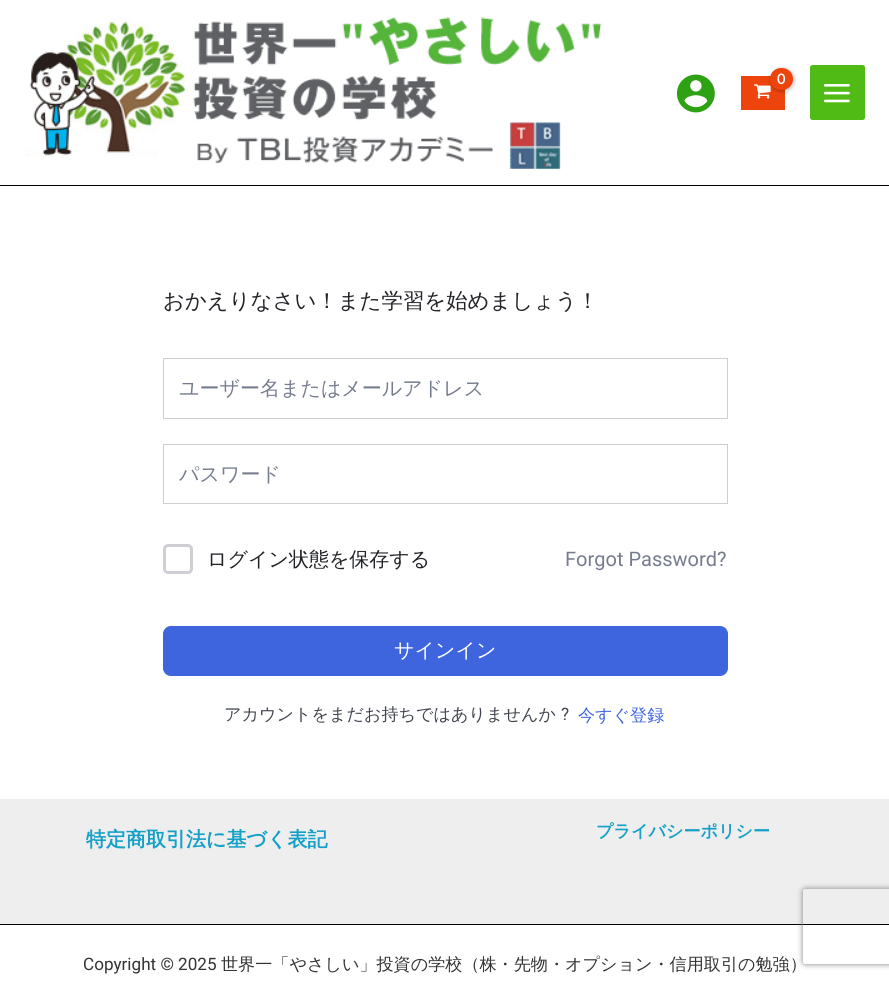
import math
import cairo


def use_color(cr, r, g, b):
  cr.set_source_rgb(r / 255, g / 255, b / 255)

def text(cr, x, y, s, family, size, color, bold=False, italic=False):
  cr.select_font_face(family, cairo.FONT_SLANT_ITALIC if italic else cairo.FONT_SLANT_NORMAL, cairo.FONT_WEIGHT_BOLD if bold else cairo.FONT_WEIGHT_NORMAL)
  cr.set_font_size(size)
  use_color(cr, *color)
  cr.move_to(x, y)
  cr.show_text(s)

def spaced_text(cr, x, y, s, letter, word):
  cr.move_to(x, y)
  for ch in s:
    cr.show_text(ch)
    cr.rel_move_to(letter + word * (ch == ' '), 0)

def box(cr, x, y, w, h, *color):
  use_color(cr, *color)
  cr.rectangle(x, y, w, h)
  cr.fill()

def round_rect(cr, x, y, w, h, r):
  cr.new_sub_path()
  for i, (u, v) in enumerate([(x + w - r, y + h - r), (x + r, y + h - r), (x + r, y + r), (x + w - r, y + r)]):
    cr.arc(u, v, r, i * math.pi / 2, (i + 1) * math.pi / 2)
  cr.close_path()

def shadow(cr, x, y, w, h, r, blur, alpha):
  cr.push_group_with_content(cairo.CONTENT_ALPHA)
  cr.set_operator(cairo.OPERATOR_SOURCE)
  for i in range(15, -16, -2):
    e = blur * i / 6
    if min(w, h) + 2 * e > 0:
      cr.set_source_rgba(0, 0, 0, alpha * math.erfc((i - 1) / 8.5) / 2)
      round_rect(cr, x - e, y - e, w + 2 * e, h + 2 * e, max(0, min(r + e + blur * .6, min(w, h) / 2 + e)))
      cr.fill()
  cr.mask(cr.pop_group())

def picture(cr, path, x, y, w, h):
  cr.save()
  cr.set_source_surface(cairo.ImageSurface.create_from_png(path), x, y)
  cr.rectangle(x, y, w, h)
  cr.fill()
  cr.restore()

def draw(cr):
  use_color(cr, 255, 255, 255)
  cr.paint()
  box(cr, 0, 185, 889, 1, 0, 0, 0)
  picture(cr, "img_01.png", 25, 17, 577, 152)
  picture(cr, "img_02.png", 676, 74, 39, 39)
  box(cr, 741, 76, 44, 34, 236, 68, 12)
  picture(cr, "img_03.png", 753, 84, 18, 15)
  use_color(cr, 0, 0, 0)
  shadow(cr, 771, 69, 23, 22, 11, 2, 0.3)
  use_color(cr, 236, 68, 12)
  round_rect(cr, 770, 68, 23, 22, 11)
  cr.fill()
  use_color(cr, 81, 187, 21)
  round_rect(cr, 810, 65, 55, 55, 2.5)
  cr.fill()
  picture(cr, "img_04.png", 823, 84, 27, 19)
  cr.rectangle(163.5, 358.5, 564, 60)
  use_color(cr, 205, 207, 213)
  cr.set_line_width(1)
  cr.stroke()
  cr.rectangle(163.5, 444.5, 564, 59)
  cr.stroke()
  round_rect(cr, 164.5, 545.5, 27, 27, 3.5)
  cr.set_line_width(3)
  cr.stroke()
  use_color(cr, 62, 100, 222)
  round_rect(cr, 163.5, 626.5, 564, 49, 7.5)
  cr.fill_preserve()
  cr.set_line_width(1)
  cr.stroke()
  box(cr, 0, 799, 889, 125, 238, 238, 238)
  box(cr, 0, 924, 889, 1, 0, 0, 0)
  cr.save()
  cr.set_fill_rule(cairo.FILL_RULE_EVEN_ODD)
  cr.new_path()
  cr.move_to(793, 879)
  cr.line_to(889, 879)
  cr.line_to(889, 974)
  cr.line_to(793, 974)
  cr.close_path()
  cr.move_to(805.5, 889)
  cr.line_to(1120.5, 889)
  cr.curve_to(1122, 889, 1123, 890, 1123, 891.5)
  cr.line_to(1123, 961.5)
  cr.curve_to(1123, 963, 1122, 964, 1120.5, 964)
  cr.line_to(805.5, 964)
  cr.curve_to(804, 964, 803, 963, 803, 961.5)
  cr.line_to(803, 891.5)
  cr.curve_to(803, 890, 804, 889, 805.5, 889)
  cr.close_path()
  cr.clip()
  use_color(cr, 128, 128, 128)
  shadow(cr, 803, 889, 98, 75, 2.5, 3, 1)
  cr.restore()
  cr.select_font_face("Lato", cairo.FONT_SLANT_NORMAL, cairo.FONT_WEIGHT_BOLD)
  cr.set_font_size(14)
  use_color(cr, 255, 255, 255)
  spaced_text(cr, 777, 84, "0", -1, 0)
  text(cr, 163, 308, "おかえりなさい！また学習を始めましょう！", "WenQuanYi Zen Hei Medium", 21.4, (33, 35, 39))
  text(cr, 179, 395, "ユーザー名またはメールアドレス", "WenQuanYi Zen Hei Medium", 20, (117, 124, 142))
  text(cr, 179, 481, "パスワード", "WenQuanYi Zen Hei Medium", 20, (117, 124, 142))
  text(cr, 207, 566, "ログイン状態を保存する", "WenQuanYi Zen Hei Medium", 20, (33, 35, 39))
  text(cr, 565, 566, "Forgot Password?", "Roboto", 20, (117, 124, 142))
  text(cr, 394, 657, "サインイン", "WenQuanYi Zen Hei Medium", 20, (255, 255, 255))
  text(cr, 224, 720, "アカウントをまだお持ちではありませんか", "WenQuanYi Zen Hei Medium", 17.1, (65, 69, 79))
  text(cr, 561, 720, "?", "Roboto", 17.1, (65, 69, 79))
  text(cr, 578, 721, "今すぐ登録", "WenQuanYi Zen Hei Medium", 17.1, (62, 100, 222))
  text(cr, 86, 846, "特定商取引法に基づく表記", "WenQuanYi Zen Hei", 20, (21, 160, 199), bold=True)
  text(cr, 596, 837, "プライバシーポリシー", "WenQuanYi Zen Hei", 17.1, (21, 160, 199), bold=True)
  text(cr, 83, 970, "Copyright © 2025", "Roboto", 17.1, (51, 51, 51))
  text(cr, 221, 970, "世界一「やさしい」投資の学校（株・先物・オプション・信用取引の勉強）", "WenQuanYi Zen Hei Medium", 17.1, (51, 51, 51))


surface = cairo.ImageSurface(cairo.FORMAT_RGB24, 889, 981)
cr = cairo.Context(surface)
options = cairo.FontOptions()
options.set_hint_metrics(cairo.HINT_METRICS_OFF)
options.set_hint_style(cairo.HINT_STYLE_NONE)
cr.set_font_options(options)
cr.set_miter_limit(4)
draw(cr)
surface.write_to_png("out.png")
